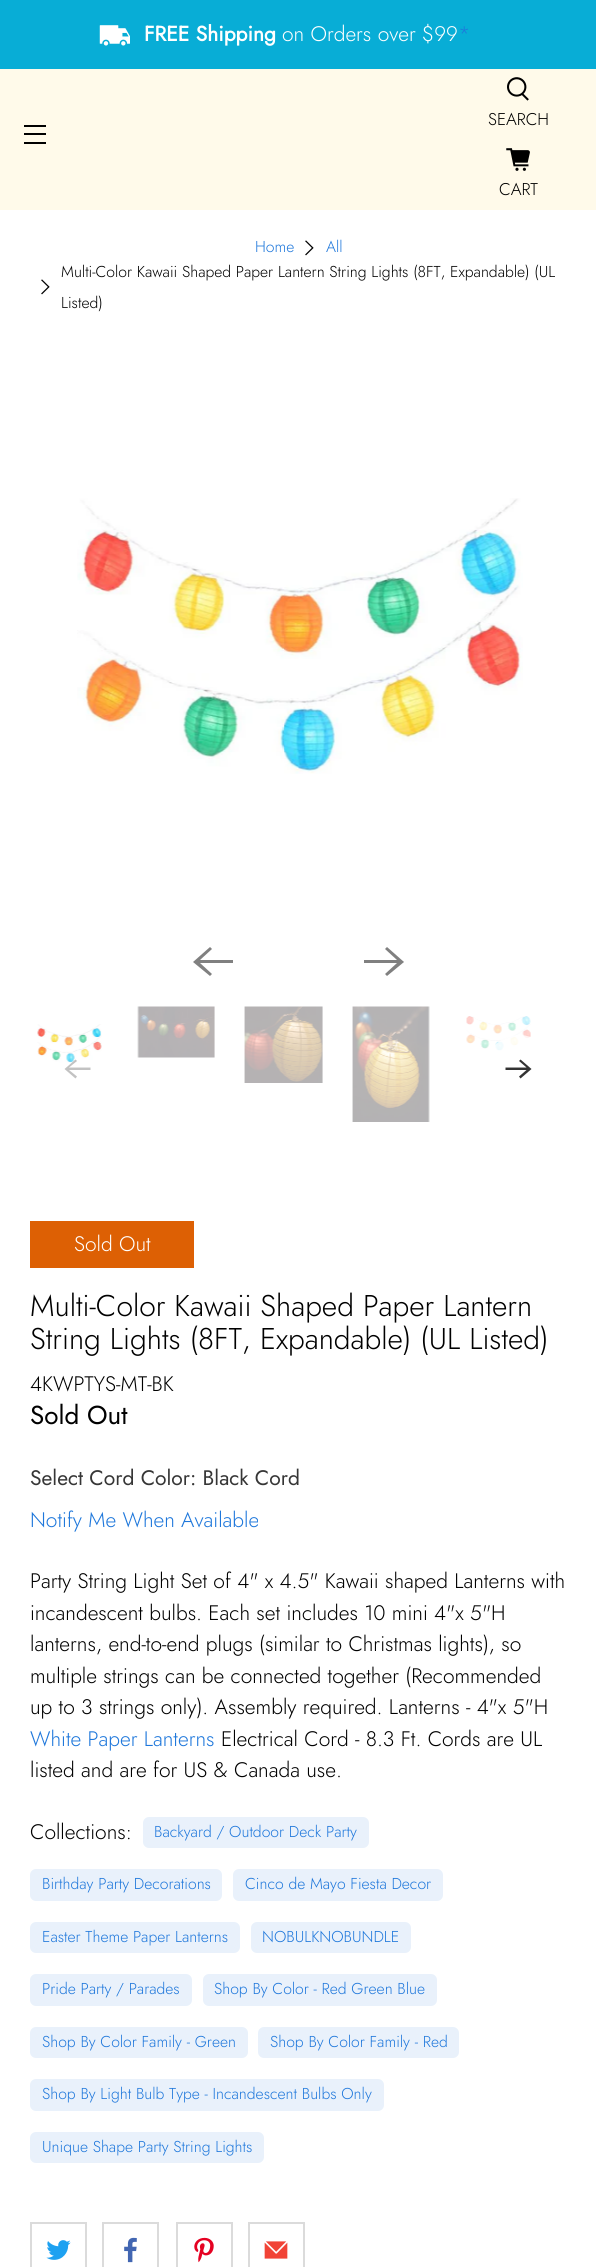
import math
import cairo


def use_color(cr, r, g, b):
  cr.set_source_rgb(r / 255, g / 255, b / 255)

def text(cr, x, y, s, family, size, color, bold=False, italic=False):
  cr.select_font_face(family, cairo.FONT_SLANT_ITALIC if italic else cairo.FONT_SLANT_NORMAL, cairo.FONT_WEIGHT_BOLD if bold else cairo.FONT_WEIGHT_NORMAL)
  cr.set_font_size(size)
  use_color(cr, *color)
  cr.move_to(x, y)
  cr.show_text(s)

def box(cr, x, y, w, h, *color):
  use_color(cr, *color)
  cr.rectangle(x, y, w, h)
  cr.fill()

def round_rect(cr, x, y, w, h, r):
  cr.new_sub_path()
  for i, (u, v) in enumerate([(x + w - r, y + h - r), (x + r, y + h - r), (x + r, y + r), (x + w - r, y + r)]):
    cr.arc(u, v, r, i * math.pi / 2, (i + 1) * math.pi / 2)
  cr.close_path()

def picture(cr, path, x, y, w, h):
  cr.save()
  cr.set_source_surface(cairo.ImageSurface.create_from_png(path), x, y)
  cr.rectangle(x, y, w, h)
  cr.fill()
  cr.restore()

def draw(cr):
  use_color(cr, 255, 255, 255)
  cr.paint()
  box(cr, 0, 0, 596, 69, 8, 173, 214)
  picture(cr, "img_01.png", 99, 25, 31, 21)
  box(cr, 0, 69, 596, 141, 255, 250, 234)
  box(cr, 24, 125, 22, 2, 0, 0, 0)
  box(cr, 24, 133, 22, 2, 0, 0, 0)
  box(cr, 24, 142, 22, 2, 0, 0, 0)
  picture(cr, "img_02.png", 507, 77, 22, 24)
  picture(cr, "img_03.png", 506, 148, 24, 23)
  picture(cr, "img_04.png", 305, 240, 9, 16)
  picture(cr, "img_04.png", 41, 279, 9, 16)
  picture(cr, "img_05.png", 77, 498, 446, 276)
  use_color(cr, 128, 128, 128)
  cr.new_path()
  cr.move_to(233, 960)
  cr.line_to(200, 960)
  cr.line_to(212, 949)
  cr.line_to(210, 947)
  cr.line_to(193, 962)
  cr.line_to(210, 976)
  cr.line_to(212, 974)
  cr.line_to(200, 963)
  cr.line_to(233, 963)
  cr.close_path()
  cr.fill()
  cr.new_path()
  cr.move_to(364, 963)
  cr.line_to(397, 963)
  cr.line_to(385, 974)
  cr.line_to(387, 976)
  cr.line_to(404, 962)
  cr.line_to(387, 947)
  cr.line_to(385, 949)
  cr.line_to(397, 960)
  cr.line_to(364, 960)
  cr.close_path()
  cr.fill()
  picture(cr, "img_06.png", 37, 1024, 65, 39)
  picture(cr, "img_07.png", 137, 1006, 78, 52)
  picture(cr, "img_08.png", 244, 1006, 79, 77)
  picture(cr, "img_09.png", 352, 1006, 78, 116)
  picture(cr, "img_10.png", 466, 1016, 65, 35)
  cr.set_source_rgba(1, 1, 1, 0.22)
  cr.arc(78, 1068, 33, 0, 2 * math.pi)
  cr.fill()
  cr.set_source_rgba(0.2, 0.2, 0.2, 0.3)
  cr.new_path()
  cr.move_to(90.5, 1067.5)
  cr.line_to(69, 1067.5)
  cr.line_to(77, 1061)
  cr.line_to(75.5, 1059.5)
  cr.line_to(64.5, 1069)
  cr.line_to(75.5, 1078.5)
  cr.line_to(77, 1076.5)
  cr.line_to(69, 1070)
  cr.line_to(90.5, 1070)
  cr.close_path()
  cr.fill()
  cr.set_source_rgba(1, 1, 1, 0.75)
  cr.arc(519, 1068, 33, 0, 2 * math.pi)
  cr.fill()
  use_color(cr, 51, 51, 51)
  cr.new_path()
  cr.move_to(505.5, 1070)
  cr.line_to(526.5, 1070)
  cr.line_to(519, 1076.5)
  cr.line_to(520.5, 1078.5)
  cr.line_to(531.5, 1069)
  cr.line_to(520.5, 1059.5)
  cr.line_to(519, 1061)
  cr.line_to(526.5, 1067.5)
  cr.line_to(505.5, 1067.5)
  cr.close_path()
  cr.fill()
  box(cr, 30, 1221, 164, 47, 221, 96, 4)
  use_color(cr, 233, 241, 251)
  round_rect(cr, 143, 1817, 226, 31, 6)
  cr.fill()
  round_rect(cr, 30, 1869, 192, 32, 6)
  cr.fill()
  round_rect(cr, 233, 1869, 210, 32, 6)
  cr.fill()
  round_rect(cr, 30, 1922, 210, 31, 6)
  cr.fill()
  round_rect(cr, 251, 1922, 160, 31, 6)
  cr.fill()
  round_rect(cr, 30, 1974, 162, 32, 6)
  cr.fill()
  round_rect(cr, 203, 1974, 234, 32, 6)
  cr.fill()
  round_rect(cr, 30, 2027, 218, 31, 6)
  cr.fill()
  round_rect(cr, 258, 2027, 201, 31, 6)
  cr.fill()
  round_rect(cr, 30, 2079, 354, 32, 6)
  cr.fill()
  round_rect(cr, 30, 2132, 234, 31, 6)
  cr.fill()
  cr.rectangle(31, 2223, 55, 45)
  use_color(cr, 219, 219, 219)
  cr.stroke()
  picture(cr, "img_11.png", 46, 2240, 25, 20)
  cr.rectangle(103, 2223, 55, 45)
  cr.stroke()
  picture(cr, "img_12.png", 124, 2237, 13, 26)
  cr.rectangle(177, 2223, 55, 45)
  cr.stroke()
  picture(cr, "img_13.png", 194, 2237, 20, 26)
  cr.rectangle(249, 2223, 55, 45)
  cr.stroke()
  picture(cr, "img_14.png", 264, 2241, 24, 18)
  text(cr, 144, 41, "FREE Shipping", "Jost", 21, (255, 255, 255), bold=True)
  text(cr, 282, 41, "on Orders over $99", "Jost Light", 21, (255, 255, 255))
  text(cr, 458, 41, "*", "Jost Light", 21, (30, 119, 219))
  text(cr, 488, 125, "SEARCH", "Jost Light", 17, (0, 0, 0))
  text(cr, 499, 195, "CART", "Jost Light", 17, (0, 0, 0))
  text(cr, 255, 252, "Home", "Jost Light", 15.75, (30, 119, 219))
  text(cr, 326, 252, "All", "Jost Light", 15.75, (30, 119, 219))
  text(cr, 61, 277, "Multi-Color Kawaii Shaped Paper Lantern String Lights (8FT, Expandable) (UL", "Jost Light", 15.75, (0, 0, 0))
  text(cr, 61, 308, "Listed)", "Jost Light", 15.75, (0, 0, 0))
  text(cr, 74, 1251, "Sold Out", "Jost Light", 21, (255, 255, 255))
  text(cr, 30, 1316, "Multi-Color Kawaii Shaped Paper Lantern", "Jost Light", 30, (0, 0, 0))
  text(cr, 30, 1349, "String Lights (8FT, Expandable) (UL Listed)", "Jost Light", 30, (0, 0, 0))
  text(cr, 30, 1391, "4KWPTYS-MT-BK", "Jost Light", 21, (0, 0, 0))
  text(cr, 30, 1424, "Sold Out", "Jost", 26, (0, 0, 0))
  text(cr, 30, 1485, "Select Cord Color: Black Cord", "Jost", 21, (54, 54, 54))
  text(cr, 30, 1527, "Notify Me When Available", "Jost Light", 21, (30, 119, 219))
  text(cr, 30, 1588, "Party String Light Set of 4\" x 4.5\" Kawaii shaped Lanterns with", "Jost Light", 21, (0, 0, 0))
  text(cr, 30, 1620, "incandescent bulbs. Each set includes 10 mini 4\"x 5\"H", "Jost Light", 21, (0, 0, 0))
  text(cr, 30, 1651, "lanterns, end-to-end plugs (similar to Christmas lights), so", "Jost Light", 21, (0, 0, 0))
  text(cr, 30, 1683, "multiple strings can be connected together (Recommended", "Jost Light", 21, (0, 0, 0))
  text(cr, 30, 1714, "up to 3 strings only). Assembly required. Lanterns - 4\"x 5\"H", "Jost Light", 21, (0, 0, 0))
  text(cr, 30, 1746, "White Paper Lanterns", "Jost Light", 21, (30, 119, 219))
  text(cr, 221, 1746, "Electrical Cord - 8.3 Ft. Cords are UL", "Jost Light", 21, (0, 0, 0))
  text(cr, 30, 1777, "listed and are for US & Canada use.", "Jost Light", 21, (0, 0, 0))
  text(cr, 30, 1839, "Collections:", "Jost Light", 21, (0, 0, 0))
  text(cr, 154, 1837, "Backyard / Outdoor Deck Party", "Jost Light", 15.75, (30, 119, 219))
  text(cr, 42, 1889, "Birthday Party Decorations", "Jost Light", 15.75, (30, 119, 219))
  text(cr, 245, 1889, "Cinco de Mayo Fiesta Decor", "Jost Light", 15.75, (30, 119, 219))
  text(cr, 42, 1942, "Easter Theme Paper Lanterns", "Jost Light", 15.75, (30, 119, 219))
  text(cr, 262, 1942, "NOBULKNOBUNDLE", "Jost Light", 15.75, (30, 119, 219))
  text(cr, 42, 1994, "Pride Party / Parades", "Jost Light", 15.75, (30, 119, 219))
  text(cr, 214, 1994, "Shop By Color - Red Green Blue", "Jost Light", 15.75, (30, 119, 219))
  text(cr, 42, 2047, "Shop By Color Family - Green", "Jost Light", 15.75, (30, 119, 219))
  text(cr, 270, 2047, "Shop By Color Family - Red", "Jost Light", 15.75, (30, 119, 219))
  text(cr, 42, 2099, "Shop By Light Bulb Type - Incandescent Bulbs Only", "Jost Light", 15.75, (30, 119, 219))
  text(cr, 42, 2152, "Unique Shape Party String Lights", "Jost Light", 15.75, (30, 119, 219))


surface = cairo.ImageSurface(cairo.FORMAT_RGB24, 596, 2267)
cr = cairo.Context(surface)
options = cairo.FontOptions()
options.set_hint_metrics(cairo.HINT_METRICS_OFF)
options.set_hint_style(cairo.HINT_STYLE_NONE)
cr.set_font_options(options)
cr.set_miter_limit(4)
draw(cr)
surface.write_to_png("out.png")
